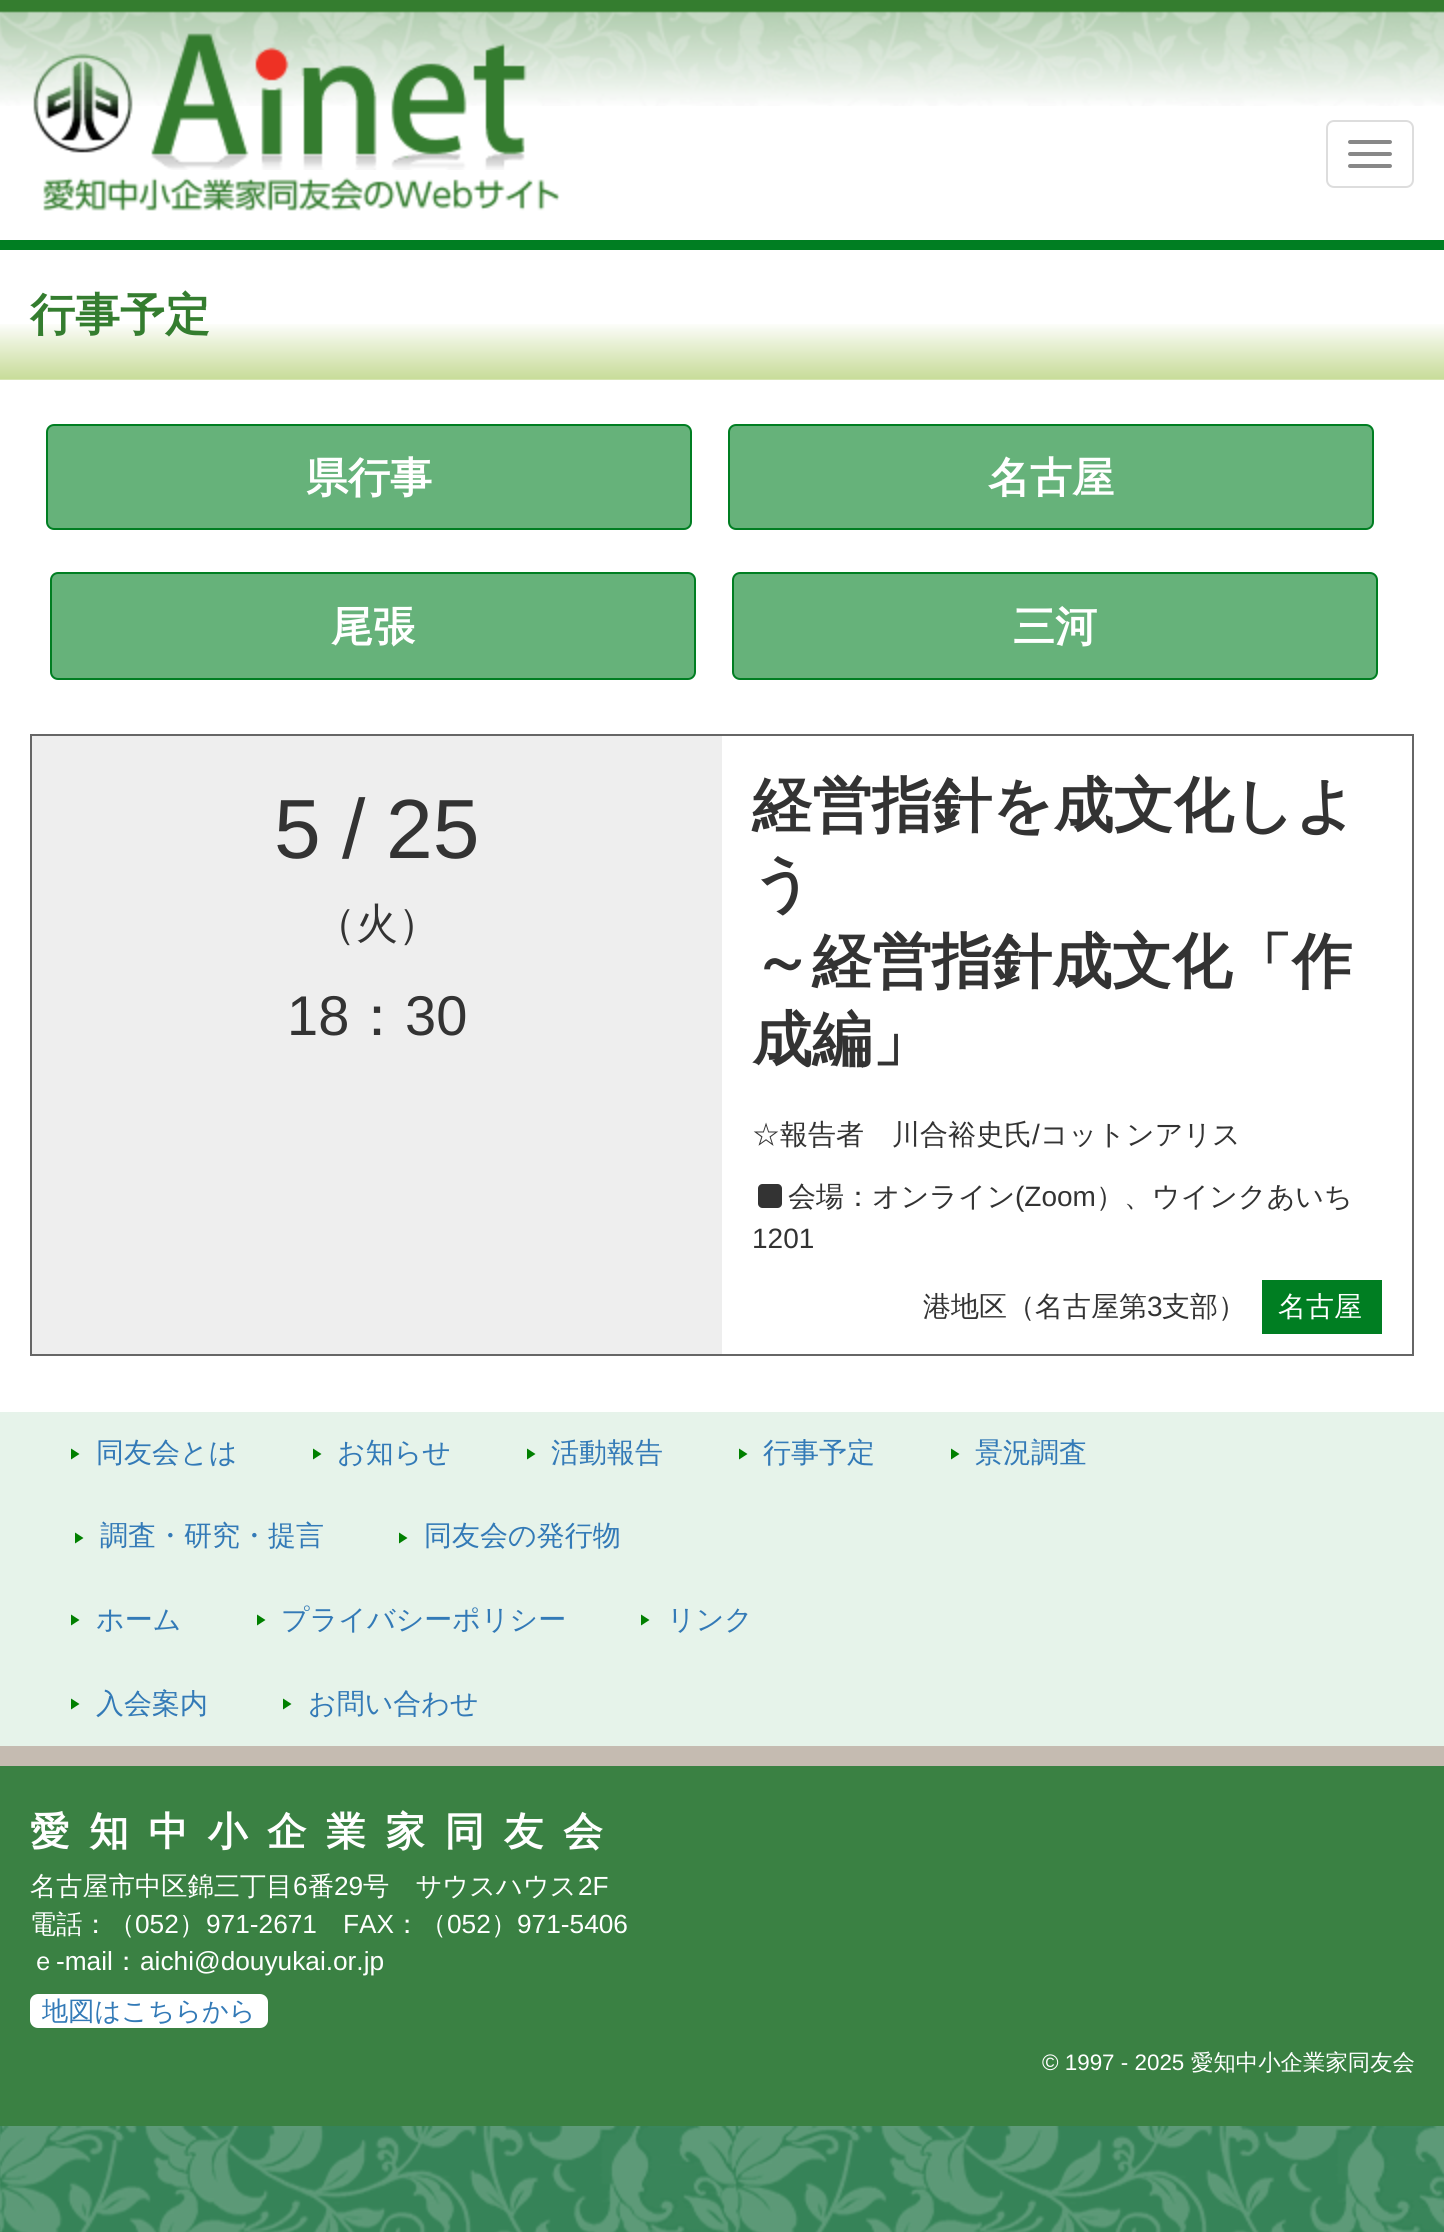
import math
import cairo


def use_color(cr, r, g, b):
  cr.set_source_rgb(r / 255, g / 255, b / 255)

def text(cr, x, y, s, family, size, color, bold=False, italic=False):
  cr.select_font_face(family, cairo.FONT_SLANT_ITALIC if italic else cairo.FONT_SLANT_NORMAL, cairo.FONT_WEIGHT_BOLD if bold else cairo.FONT_WEIGHT_NORMAL)
  cr.set_font_size(size)
  use_color(cr, *color)
  cr.move_to(x, y)
  cr.show_text(s)

def spaced_text(cr, x, y, s, letter, word):
  cr.move_to(x, y)
  for ch in s:
    cr.show_text(ch)
    cr.rel_move_to(letter + word * (ch == ' '), 0)

def box(cr, x, y, w, h, *color):
  use_color(cr, *color)
  cr.rectangle(x, y, w, h)
  cr.fill()

def round_rect(cr, x, y, w, h, r):
  cr.new_sub_path()
  for i, (u, v) in enumerate([(x + w - r, y + h - r), (x + r, y + h - r), (x + r, y + r), (x + w - r, y + r)]):
    cr.arc(u, v, r, i * math.pi / 2, (i + 1) * math.pi / 2)
  cr.close_path()

def picture(cr, path, x, y, w, h):
  cr.save()
  cr.set_source_surface(cairo.ImageSurface.create_from_png(path), x, y)
  cr.rectangle(x, y, w, h)
  cr.fill()
  cr.restore()

def draw(cr):
  use_color(cr, 255, 255, 255)
  cr.paint()
  picture(cr, "img_01.png", 0, 0, 1444, 106)
  box(cr, 0, 240, 1444, 10, 0, 126, 34)
  picture(cr, "img_02.png", 33, 33, 494, 137)
  picture(cr, "img_03.png", 43, 177, 517, 34)
  round_rect(cr, 1327, 121, 86, 66, 7)
  use_color(cr, 221, 221, 221)
  cr.stroke()
  use_color(cr, 136, 136, 136)
  round_rect(cr, 1348, 140, 44, 4, 2)
  cr.fill()
  round_rect(cr, 1348, 152, 44, 4, 2)
  cr.fill()
  round_rect(cr, 1348, 164, 44, 4, 2)
  cr.fill()
  picture(cr, "img_04.png", 0, 324, 1444, 56)
  use_color(cr, 102, 178, 122)
  round_rect(cr, 47, 425, 644, 104, 7)
  cr.fill_preserve()
  use_color(cr, 0, 126, 34)
  cr.stroke()
  use_color(cr, 102, 178, 122)
  round_rect(cr, 729, 425, 644, 104, 7)
  cr.fill_preserve()
  use_color(cr, 0, 126, 34)
  cr.stroke()
  use_color(cr, 102, 178, 122)
  round_rect(cr, 51, 573, 644, 106, 7)
  cr.fill_preserve()
  use_color(cr, 0, 126, 34)
  cr.stroke()
  use_color(cr, 102, 178, 122)
  round_rect(cr, 733, 573, 644, 106, 7)
  cr.fill_preserve()
  use_color(cr, 0, 126, 34)
  cr.stroke()
  cr.rectangle(31, 735, 1382, 620)
  use_color(cr, 102, 102, 102)
  cr.stroke()
  box(cr, 32, 736, 690, 618, 238, 238, 238)
  picture(cr, "img_05.png", 758, 1184, 24, 24)
  box(cr, 1262, 1280, 120, 54, 0, 126, 34)
  box(cr, 0, 1412, 1444, 334, 230, 243, 234)
  use_color(cr, 0, 128, 0)
  cr.new_path()
  cr.move_to(71, 1448.5)
  cr.line_to(79.5, 1454)
  cr.line_to(71, 1459.5)
  cr.close_path()
  cr.fill()
  cr.new_path()
  cr.move_to(313, 1448.5)
  cr.line_to(321.5, 1454)
  cr.line_to(313, 1459.5)
  cr.close_path()
  cr.fill()
  cr.new_path()
  cr.move_to(527, 1448.5)
  cr.line_to(535.5, 1454)
  cr.line_to(527, 1459.5)
  cr.close_path()
  cr.fill()
  cr.new_path()
  cr.move_to(739, 1448.5)
  cr.line_to(747.5, 1454)
  cr.line_to(739, 1459.5)
  cr.close_path()
  cr.fill()
  cr.new_path()
  cr.move_to(951, 1448.5)
  cr.line_to(959.5, 1454)
  cr.line_to(951, 1459.5)
  cr.close_path()
  cr.fill()
  cr.new_path()
  cr.move_to(75, 1532.5)
  cr.line_to(83.5, 1538)
  cr.line_to(75, 1543.5)
  cr.close_path()
  cr.fill()
  cr.new_path()
  cr.move_to(399, 1532.5)
  cr.line_to(407.5, 1538)
  cr.line_to(399, 1543.5)
  cr.close_path()
  cr.fill()
  cr.new_path()
  cr.move_to(71, 1614.5)
  cr.line_to(79.5, 1620)
  cr.line_to(71, 1625.5)
  cr.close_path()
  cr.fill()
  cr.new_path()
  cr.move_to(257, 1614.5)
  cr.line_to(265.5, 1620)
  cr.line_to(257, 1625.5)
  cr.close_path()
  cr.fill()
  cr.new_path()
  cr.move_to(641, 1614.5)
  cr.line_to(649.5, 1620)
  cr.line_to(641, 1625.5)
  cr.close_path()
  cr.fill()
  cr.new_path()
  cr.move_to(71, 1698.5)
  cr.line_to(79.5, 1704)
  cr.line_to(71, 1709.5)
  cr.close_path()
  cr.fill()
  cr.new_path()
  cr.move_to(283, 1698.5)
  cr.line_to(291.5, 1704)
  cr.line_to(283, 1709.5)
  cr.close_path()
  cr.fill()
  box(cr, 0, 1766, 1444, 360, 58, 129, 67)
  picture(cr, "img_06.png", 0, 2126, 1444, 106)
  box(cr, 0, 1746, 1444, 20, 197, 187, 177)
  use_color(cr, 255, 255, 255)
  round_rect(cr, 30, 1994, 238, 34, 8)
  cr.fill()
  text(cr, 30, 330, "行事予定", "WenQuanYi Zen Hei", 45, (52, 125, 47), bold=True)
  text(cr, 306, 492, "県行事", "WenQuanYi Zen Hei", 42, (255, 255, 255), bold=True)
  text(cr, 988, 492, "名古屋", "WenQuanYi Zen Hei", 42, (255, 255, 255), bold=True)
  text(cr, 331, 641, "尾張", "WenQuanYi Zen Hei", 42, (255, 255, 255), bold=True)
  text(cr, 1013, 641, "三河", "WenQuanYi Zen Hei", 42, (255, 255, 255), bold=True)
  text(cr, 274, 858, "5", "Liberation Sans", 84, (51, 51, 51))
  text(cr, 342, 858, "/", "Liberation Sans", 84, (51, 51, 51))
  text(cr, 386, 858, "25", "Liberation Sans", 84, (51, 51, 51))
  text(cr, 314, 938, "（火）", "WenQuanYi Zen Hei Medium", 42, (51, 51, 51))
  text(cr, 287, 1035, "18", "Liberation Sans", 56, (51, 51, 51))
  text(cr, 349, 1035, "：", "WenQuanYi Zen Hei Medium", 56, (51, 51, 51))
  text(cr, 405, 1035, "30", "Liberation Sans", 56, (51, 51, 51))
  text(cr, 752, 826, "経営指針を成文化しよ", "WenQuanYi Zen Hei", 60, (51, 51, 51), bold=True)
  text(cr, 752, 904, "う", "WenQuanYi Zen Hei", 60, (51, 51, 51), bold=True)
  text(cr, 752, 982, "～経営指針成文化「作", "WenQuanYi Zen Hei", 60, (51, 51, 51), bold=True)
  text(cr, 752, 1060, "成編」", "WenQuanYi Zen Hei", 60, (51, 51, 51), bold=True)
  text(cr, 752, 1144, "☆報告者　川合裕史氏", "WenQuanYi Zen Hei Medium", 28, (51, 51, 51))
  text(cr, 1032, 1144, "/", "Liberation Sans", 28, (51, 51, 51))
  text(cr, 1040, 1144, "コットンアリス", "WenQuanYi Zen Hei Medium", 28, (51, 51, 51))
  text(cr, 788, 1206, "会場：オンライン", "WenQuanYi Zen Hei Medium", 28, (51, 51, 51))
  text(cr, 1015, 1206, "(Zoom", "Liberation Sans", 28, (51, 51, 51))
  text(cr, 1096, 1206, "）、ウインクあいち", "WenQuanYi Zen Hei Medium", 28, (51, 51, 51))
  text(cr, 752, 1248, "1201", "Liberation Sans", 28, (51, 51, 51))
  text(cr, 923, 1316, "港地区（名古屋第", "WenQuanYi Zen Hei Medium", 28, (51, 51, 51))
  text(cr, 1147, 1316, "3", "Liberation Sans", 28, (51, 51, 51))
  text(cr, 1162, 1316, "支部）", "WenQuanYi Zen Hei Medium", 28, (51, 51, 51))
  text(cr, 1278, 1316, "名古屋", "WenQuanYi Zen Hei Medium", 28, (255, 255, 255))
  text(cr, 96, 1462, "同友会とは", "WenQuanYi Zen Hei Medium", 28, (51, 122, 183))
  text(cr, 337, 1462, "お知らせ", "WenQuanYi Zen Hei Medium", 28, (51, 122, 183))
  text(cr, 551, 1462, "活動報告", "WenQuanYi Zen Hei Medium", 28, (51, 122, 183))
  text(cr, 763, 1462, "行事予定", "WenQuanYi Zen Hei Medium", 28, (51, 122, 183))
  text(cr, 975, 1462, "景況調査", "WenQuanYi Zen Hei Medium", 28, (51, 122, 183))
  text(cr, 100, 1545, "調査・研究・提言", "WenQuanYi Zen Hei Medium", 28, (51, 122, 183))
  text(cr, 424, 1545, "同友会の発行物", "WenQuanYi Zen Hei Medium", 28, (51, 122, 183))
  text(cr, 96, 1629, "ホーム", "WenQuanYi Zen Hei Medium", 28, (51, 122, 183))
  text(cr, 281, 1629, "プライバシーポリシー", "WenQuanYi Zen Hei Medium", 28, (51, 122, 183))
  text(cr, 667, 1629, "リンク", "WenQuanYi Zen Hei Medium", 28, (51, 122, 183))
  text(cr, 96, 1713, "入会案内", "WenQuanYi Zen Hei Medium", 28, (51, 122, 183))
  text(cr, 308, 1713, "お問い合わせ", "WenQuanYi Zen Hei Medium", 28, (51, 122, 183))
  cr.select_font_face("WenQuanYi Zen Hei", cairo.FONT_SLANT_NORMAL, cairo.FONT_WEIGHT_BOLD)
  cr.set_font_size(39.5)
  use_color(cr, 255, 255, 255)
  spaced_text(cr, 30, 1845, "愛知中小企業家同友会", 19.75, 0)
  text(cr, 30, 1895, "名古屋市中区錦三丁目", "WenQuanYi Zen Hei Medium", 26.25, (255, 255, 255))
  text(cr, 293, 1895, "6", "Liberation Sans", 26.25, (255, 255, 255))
  text(cr, 308, 1895, "番", "WenQuanYi Zen Hei Medium", 26.25, (255, 255, 255))
  text(cr, 334, 1895, "29", "Liberation Sans", 26.25, (255, 255, 255))
  text(cr, 363, 1895, "号　サウスハウス", "WenQuanYi Zen Hei Medium", 26.25, (255, 255, 255))
  text(cr, 578, 1895, "2F", "Liberation Sans", 26.25, (255, 255, 255))
  text(cr, 30, 1933, "電話：（", "WenQuanYi Zen Hei Medium", 26.25, (255, 255, 255))
  text(cr, 135, 1933, "052", "Liberation Sans", 26.25, (255, 255, 255))
  text(cr, 179, 1933, "）", "WenQuanYi Zen Hei Medium", 26.25, (255, 255, 255))
  text(cr, 206, 1933, "971-2671", "Liberation Sans", 26.25, (255, 255, 255))
  text(cr, 343, 1933, "FAX", "Liberation Sans", 26.25, (255, 255, 255))
  text(cr, 394, 1933, "：（", "WenQuanYi Zen Hei Medium", 26.25, (255, 255, 255))
  text(cr, 447, 1933, "052", "Liberation Sans", 26.25, (255, 255, 255))
  text(cr, 491, 1933, "）", "WenQuanYi Zen Hei Medium", 26.25, (255, 255, 255))
  text(cr, 517, 1933, "971-5406", "Liberation Sans", 26.25, (255, 255, 255))
  text(cr, 30, 1970, "ｅ", "WenQuanYi Zen Hei Medium", 26.25, (255, 255, 255))
  text(cr, 56, 1970, "-mail", "Liberation Sans", 26.25, (255, 255, 255))
  text(cr, 113, 1970, "：", "WenQuanYi Zen Hei Medium", 26.25, (255, 255, 255))
  text(cr, 140, 1970, "aichi@douyukai.or.jp", "Liberation Sans", 26.25, (255, 255, 255))
  text(cr, 42, 2020, "地図はこちらから", "WenQuanYi Zen Hei Medium", 26.25, (51, 122, 183))
  text(cr, 1042, 2070, "© 1997 - 2025", "Liberation Sans", 22.4, (255, 255, 255))
  text(cr, 1191, 2070, "愛知中小企業家同友会", "WenQuanYi Zen Hei Medium", 22.4, (255, 255, 255))


surface = cairo.ImageSurface(cairo.FORMAT_RGB24, 1444, 2232)
cr = cairo.Context(surface)
options = cairo.FontOptions()
options.set_hint_metrics(cairo.HINT_METRICS_OFF)
options.set_hint_style(cairo.HINT_STYLE_NONE)
cr.set_font_options(options)
cr.set_miter_limit(4)
draw(cr)
surface.write_to_png("out.png")
